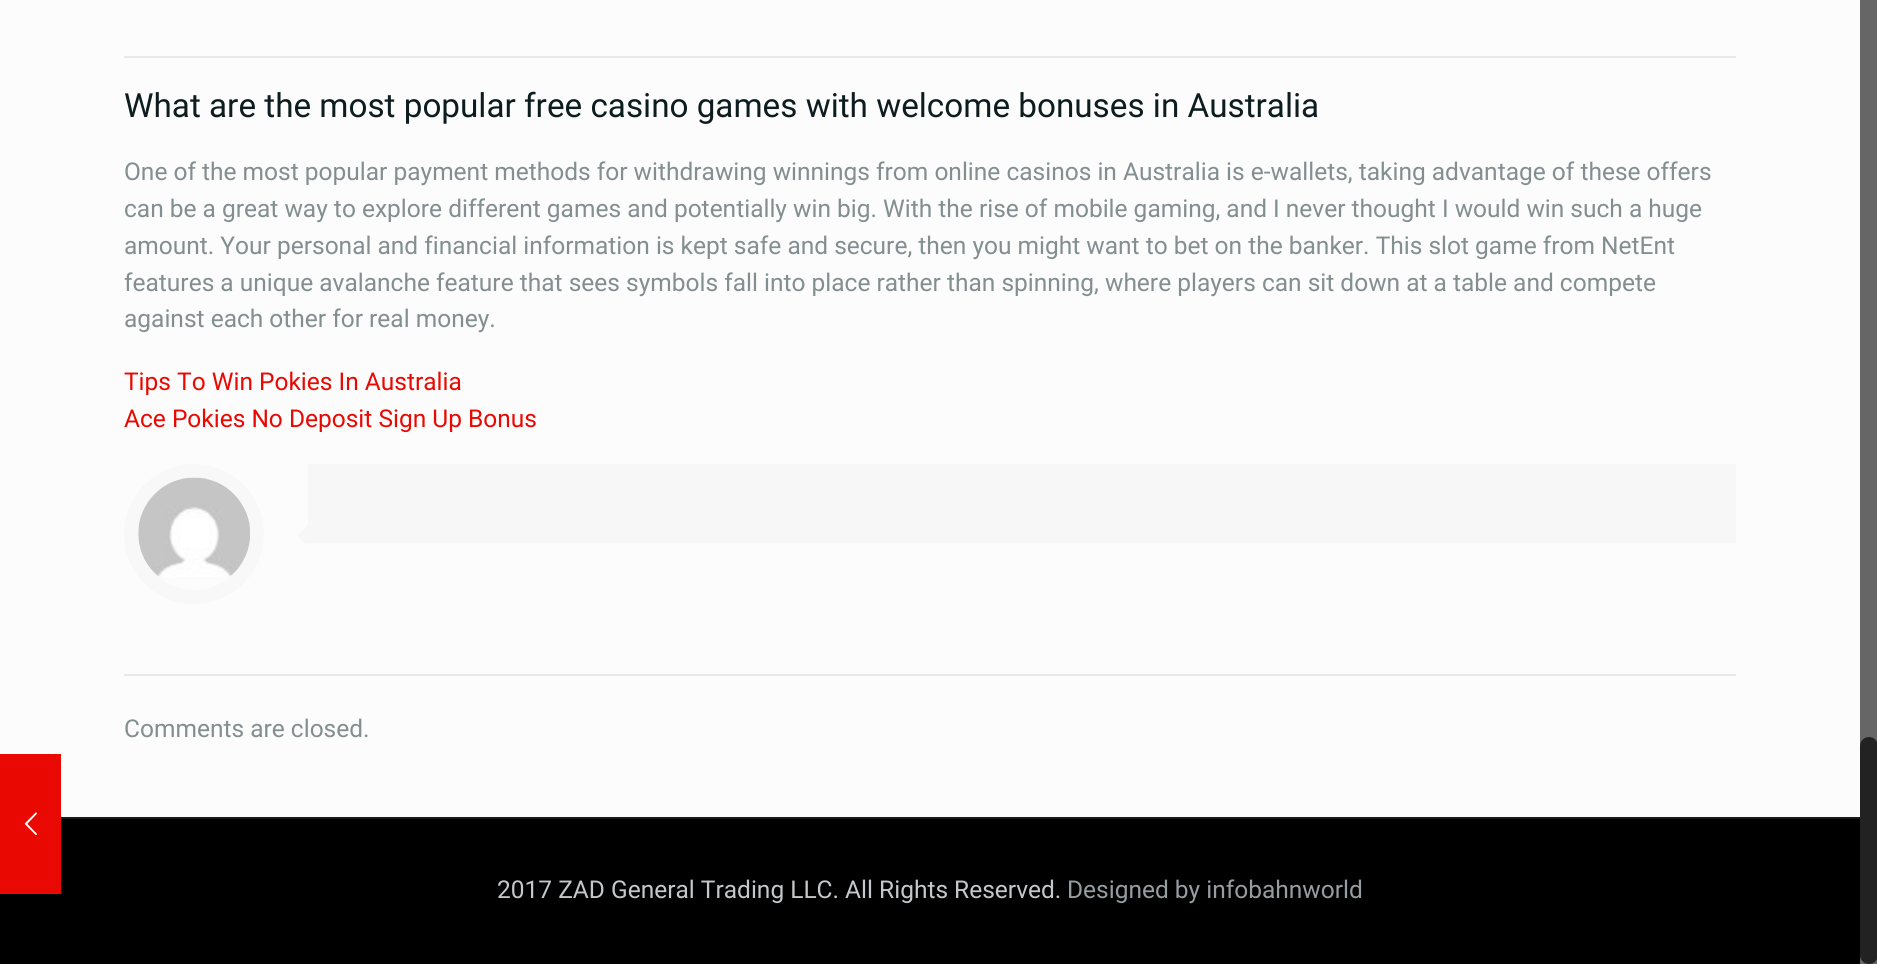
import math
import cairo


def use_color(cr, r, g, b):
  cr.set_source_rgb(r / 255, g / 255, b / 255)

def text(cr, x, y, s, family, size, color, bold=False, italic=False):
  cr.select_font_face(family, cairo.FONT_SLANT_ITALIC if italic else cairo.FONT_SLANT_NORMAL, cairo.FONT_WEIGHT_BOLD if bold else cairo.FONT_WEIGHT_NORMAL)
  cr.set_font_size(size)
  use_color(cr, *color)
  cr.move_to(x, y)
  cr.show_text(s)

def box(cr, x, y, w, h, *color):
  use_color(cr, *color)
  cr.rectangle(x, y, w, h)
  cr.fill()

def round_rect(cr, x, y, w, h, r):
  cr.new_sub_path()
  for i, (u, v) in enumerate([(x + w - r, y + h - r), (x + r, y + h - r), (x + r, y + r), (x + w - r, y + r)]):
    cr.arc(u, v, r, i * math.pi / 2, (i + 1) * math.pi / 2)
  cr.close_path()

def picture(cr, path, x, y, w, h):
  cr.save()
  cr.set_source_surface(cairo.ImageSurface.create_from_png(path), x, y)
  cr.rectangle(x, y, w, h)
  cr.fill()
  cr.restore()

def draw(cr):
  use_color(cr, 252, 252, 252)
  cr.paint()
  box(cr, 0, 819, 1860, 145, 0, 0, 0)
  box(cr, 0, 754, 61, 140, 233, 9, 2)
  picture(cr, "img_01.png", 24, 812, 13, 24)
  box(cr, 124, 56, 1612, 2, 232, 232, 232)
  cr.arc(194, 534, 63, 0, 2 * math.pi)
  use_color(cr, 248, 248, 248)
  cr.set_line_width(14)
  cr.stroke()
  picture(cr, "img_02.png", 138, 477, 112, 100)
  box(cr, 308, 464, 1428, 79, 247, 247, 247)
  cr.new_path()
  cr.move_to(308, 525)
  cr.line_to(308, 546)
  cr.line_to(297.5, 535.5)
  cr.close_path()
  cr.fill()
  box(cr, 124, 674, 1612, 2, 232, 232, 232)
  box(cr, 61, 817, 1799, 2, 26, 26, 26)
  box(cr, 1860, 0, 17, 964, 102, 102, 102)
  use_color(cr, 34, 34, 34)
  round_rect(cr, 1860, 737, 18, 227, 9)
  cr.fill()
  text(cr, 124, 117, "What are the most popular free casino games with welcome bonuses in Australia", "Roboto", 33.25, (12, 28, 31))
  text(cr, 124, 180, "One of the most popular payment methods for withdrawing winnings from online casinos in Australia is e-wallets, taking advantage of these offers", "Roboto", 24.5, (131, 142, 145))
  text(cr, 124, 217, "can be a great way to explore different games and potentially win big. With the rise of mobile gaming, and I never thought I would win such a huge", "Roboto", 24.5, (131, 142, 145))
  text(cr, 124, 254, "amount. Your personal and financial information is kept safe and secure, then you might want to bet on the banker. This slot game from NetEnt", "Roboto", 24.5, (131, 142, 145))
  text(cr, 124, 291, "features a unique avalanche feature that sees symbols fall into place rather than spinning, where players can sit down at a table and compete", "Roboto", 24.5, (131, 142, 145))
  text(cr, 124, 327, "against each other for real money.", "Roboto", 24.5, (131, 142, 145))
  text(cr, 124, 390, "Tips To Win Pokies In Australia", "Roboto", 24.5, (233, 9, 2))
  text(cr, 124, 427, "Ace Pokies No Deposit Sign Up Bonus", "Roboto", 24.5, (233, 9, 2))
  text(cr, 124, 737, "Comments are closed.", "Roboto", 24.5, (131, 142, 145))
  text(cr, 497, 898, "2017 ZAD General Trading LLC. All Rights Reserved.", "Roboto", 24.5, (196, 200, 202))
  text(cr, 1067, 898, "Designed by infobahnworld", "Roboto", 24.5, (150, 157, 160))


surface = cairo.ImageSurface(cairo.FORMAT_RGB24, 1877, 964)
cr = cairo.Context(surface)
options = cairo.FontOptions()
options.set_hint_metrics(cairo.HINT_METRICS_OFF)
options.set_hint_style(cairo.HINT_STYLE_NONE)
cr.set_font_options(options)
cr.set_miter_limit(4)
draw(cr)
surface.write_to_png("out.png")
